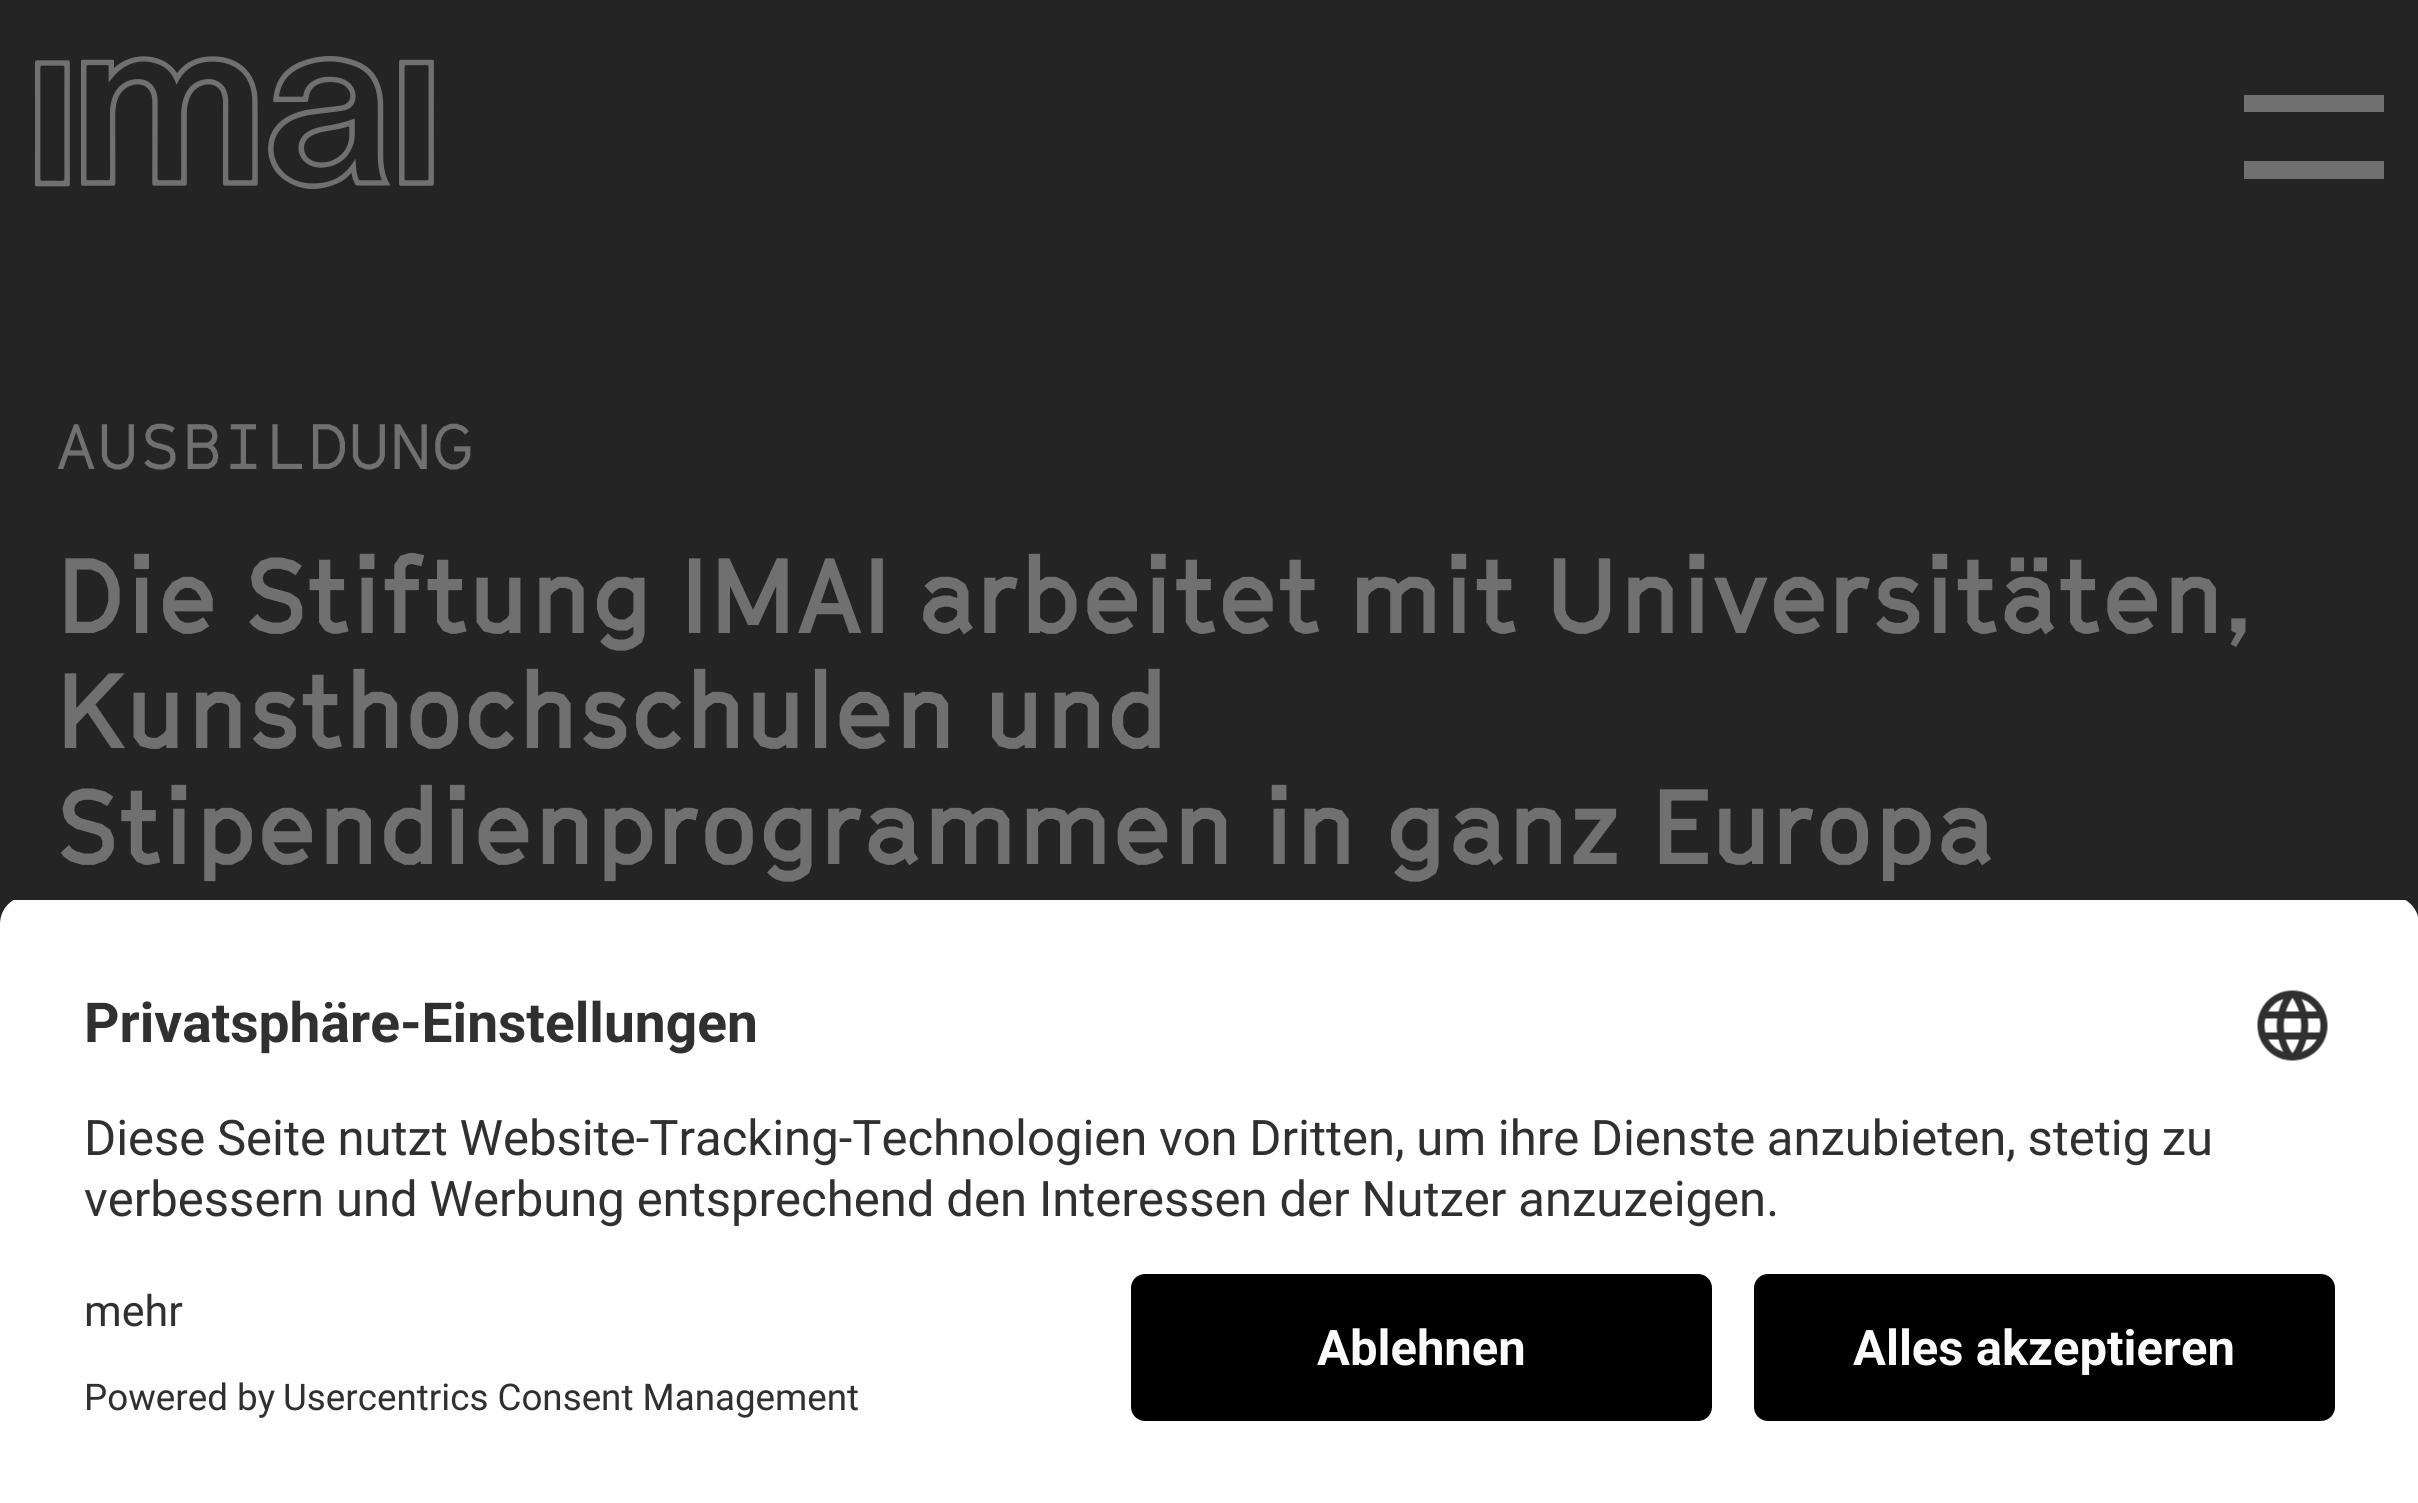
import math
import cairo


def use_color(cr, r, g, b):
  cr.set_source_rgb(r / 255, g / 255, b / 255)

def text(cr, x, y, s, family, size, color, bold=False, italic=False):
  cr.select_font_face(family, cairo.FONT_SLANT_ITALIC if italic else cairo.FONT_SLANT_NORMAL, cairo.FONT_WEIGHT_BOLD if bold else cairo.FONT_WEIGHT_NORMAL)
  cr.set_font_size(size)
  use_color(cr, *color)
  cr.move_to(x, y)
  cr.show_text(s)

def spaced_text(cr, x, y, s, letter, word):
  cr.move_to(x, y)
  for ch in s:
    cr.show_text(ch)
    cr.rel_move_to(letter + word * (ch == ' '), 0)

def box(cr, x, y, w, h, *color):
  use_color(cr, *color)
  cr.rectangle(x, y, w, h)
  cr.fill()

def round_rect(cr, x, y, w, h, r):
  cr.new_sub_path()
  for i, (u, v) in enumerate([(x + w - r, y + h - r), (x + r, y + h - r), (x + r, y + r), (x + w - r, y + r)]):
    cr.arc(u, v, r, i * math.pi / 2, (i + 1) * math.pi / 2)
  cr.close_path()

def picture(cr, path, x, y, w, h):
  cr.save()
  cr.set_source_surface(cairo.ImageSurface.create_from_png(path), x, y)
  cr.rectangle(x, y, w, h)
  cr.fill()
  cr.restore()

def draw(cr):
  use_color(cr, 36, 36, 36)
  cr.paint()
  picture(cr, "img_01.png", 35, 56, 399, 133)
  box(cr, 2244, 95, 140, 17, 112, 112, 112)
  box(cr, 2244, 161, 140, 18, 112, 112, 112)
  cr.save()
  cr.new_path()
  cr.move_to(28, 896)
  cr.line_to(2391, 896)
  cr.curve_to(2406.5, 896, 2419, 908.5, 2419, 924)
  cr.line_to(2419, 1246)
  cr.line_to(0, 1246)
  cr.line_to(0, 924)
  cr.curve_to(0, 908.5, 12.5, 896, 28, 896)
  cr.close_path()
  cr.clip()
  box(cr, 0, 900, 2418, 346, 255, 255, 255)
  cr.restore()
  picture(cr, "img_02.png", 2257, 990, 71, 71)
  box(cr, 0, 1246, 2418, 257, 255, 255, 255)
  use_color(cr, 0, 0, 0)
  round_rect(cr, 1131, 1274, 581, 147, 14)
  cr.fill()
  round_rect(cr, 1754, 1274, 581, 147, 14)
  cr.fill()
  cr.select_font_face("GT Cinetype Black")
  cr.set_font_size(63)
  use_color(cr, 112, 112, 112)
  spaced_text(cr, 56, 469, "AUSBILDUNG", 1.5, 0)
  cr.select_font_face("GT Cinetype", cairo.FONT_SLANT_NORMAL, cairo.FONT_WEIGHT_BOLD)
  cr.set_font_size(105)
  spaced_text(cr, 56, 633, "Die Stiftung IMAI arbeitet mit Universitäten,", 0, -4.5)
  spaced_text(cr, 56, 748, "Kunsthochschulen und", 0, -3)
  spaced_text(cr, 56, 864, "Stipendienprogrammen in ganz Europa", 0, -2)
  text(cr, 84, 1042, "Privatsphäre-Einstellungen", "Roboto", 55.1, (48, 48, 48), bold=True)
  cr.select_font_face("Roboto")
  cr.set_font_size(49)
  spaced_text(cr, 84, 1155, "Diese Seite nutzt Website-Tracking-Technologien von Dritten, um ihre Dienste anzubieten, stetig zu", 0, -0.6)
  spaced_text(cr, 84, 1216, "verbessern und Werbung entsprechend den Interessen der Nutzer anzuzeigen.", 0, -0.25)
  text(cr, 84, 1326, "mehr", "Roboto", 43, (48, 48, 48))
  text(cr, 84, 1410, "Powered by", "Roboto", 36.75, (48, 48, 48))
  text(cr, 283, 1410, "Usercentrics Consent Management", "Roboto", 36.75, (48, 48, 48))
  text(cr, 1317, 1365, "Ablehnen", "Roboto", 49, (250, 250, 250), bold=True)
  text(cr, 1853, 1365, "Alles akzeptieren", "Roboto", 49, (250, 250, 250), bold=True)


surface = cairo.ImageSurface(cairo.FORMAT_RGB24, 2418, 1503)
cr = cairo.Context(surface)
options = cairo.FontOptions()
options.set_hint_metrics(cairo.HINT_METRICS_OFF)
options.set_hint_style(cairo.HINT_STYLE_NONE)
cr.set_font_options(options)
cr.set_miter_limit(4)
draw(cr)
surface.write_to_png("out.png")
